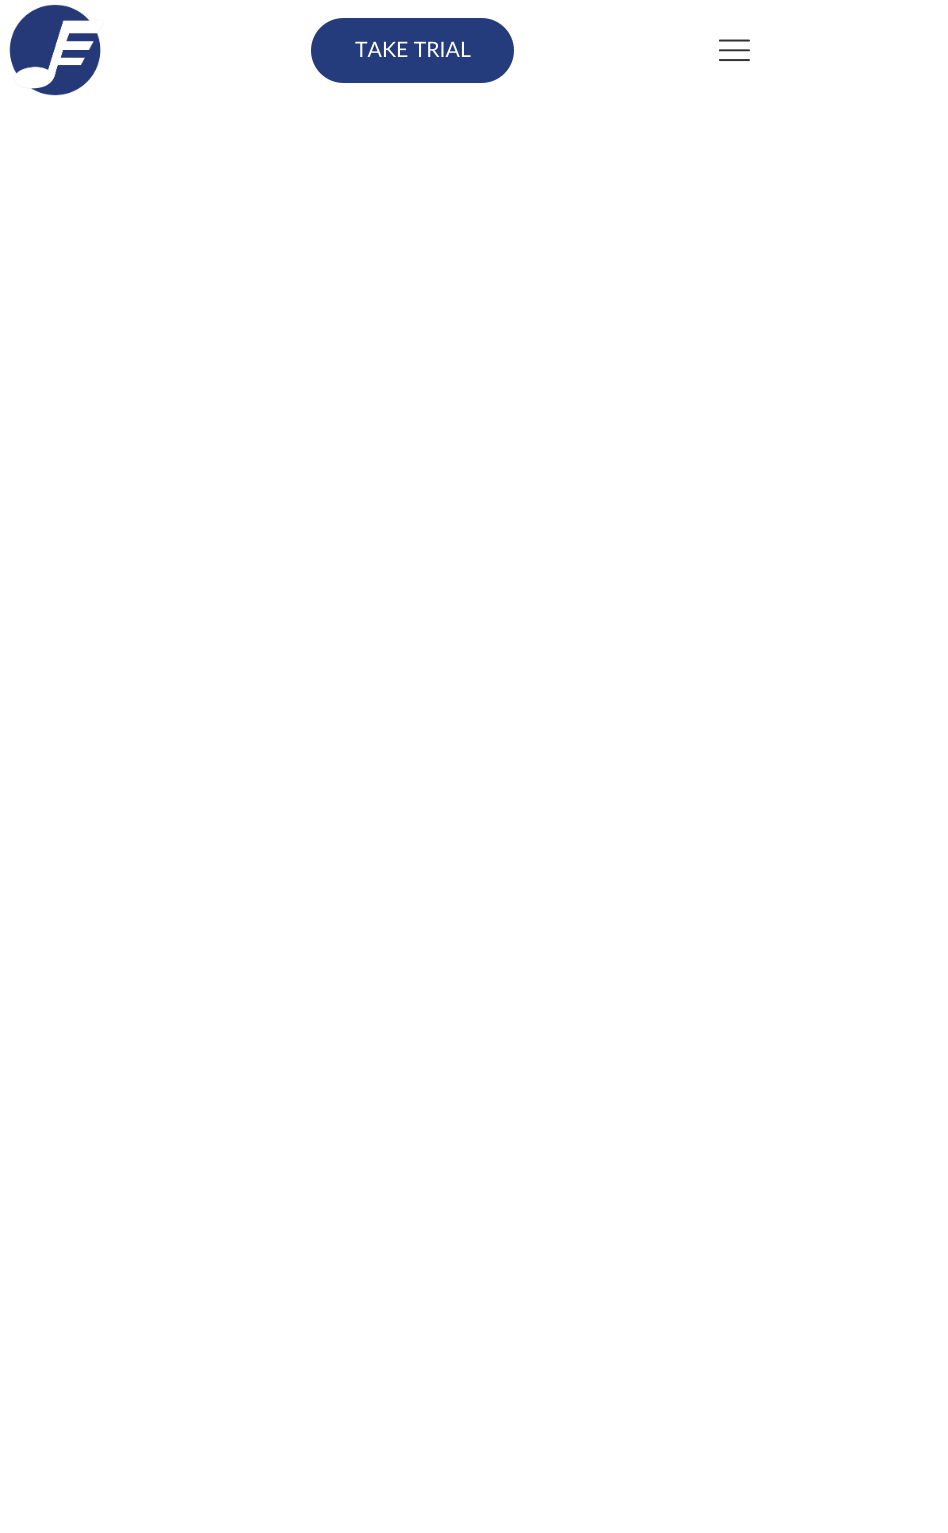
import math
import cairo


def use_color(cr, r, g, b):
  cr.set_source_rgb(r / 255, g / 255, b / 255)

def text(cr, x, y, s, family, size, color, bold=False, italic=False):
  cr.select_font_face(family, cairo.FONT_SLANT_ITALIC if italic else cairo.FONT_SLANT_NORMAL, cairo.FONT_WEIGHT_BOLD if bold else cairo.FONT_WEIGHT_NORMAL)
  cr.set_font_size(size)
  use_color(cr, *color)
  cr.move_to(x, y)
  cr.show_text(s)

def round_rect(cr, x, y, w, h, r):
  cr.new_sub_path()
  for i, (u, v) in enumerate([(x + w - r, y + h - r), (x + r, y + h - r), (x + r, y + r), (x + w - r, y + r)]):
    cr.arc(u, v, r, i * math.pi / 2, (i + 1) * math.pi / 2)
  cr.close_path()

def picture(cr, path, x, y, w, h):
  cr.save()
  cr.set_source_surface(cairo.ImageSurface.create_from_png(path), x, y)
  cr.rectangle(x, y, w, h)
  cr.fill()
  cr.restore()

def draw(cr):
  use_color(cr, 255, 255, 255)
  cr.paint()
  picture(cr, "img_01.png", 9, 4, 96, 92)
  use_color(cr, 36, 60, 124)
  round_rect(cr, 311, 18, 203, 65, 32.5)
  cr.fill()
  picture(cr, "img_02.png", 719, 39, 31, 23)
  text(cr, 355, 57, "TAKE TRIAL", "Lato", 21.25, (255, 255, 255))


surface = cairo.ImageSurface(cairo.FORMAT_RGB24, 948, 1533)
cr = cairo.Context(surface)
options = cairo.FontOptions()
options.set_hint_metrics(cairo.HINT_METRICS_OFF)
options.set_hint_style(cairo.HINT_STYLE_NONE)
cr.set_font_options(options)
cr.set_miter_limit(4)
draw(cr)
surface.write_to_png("out.png")
